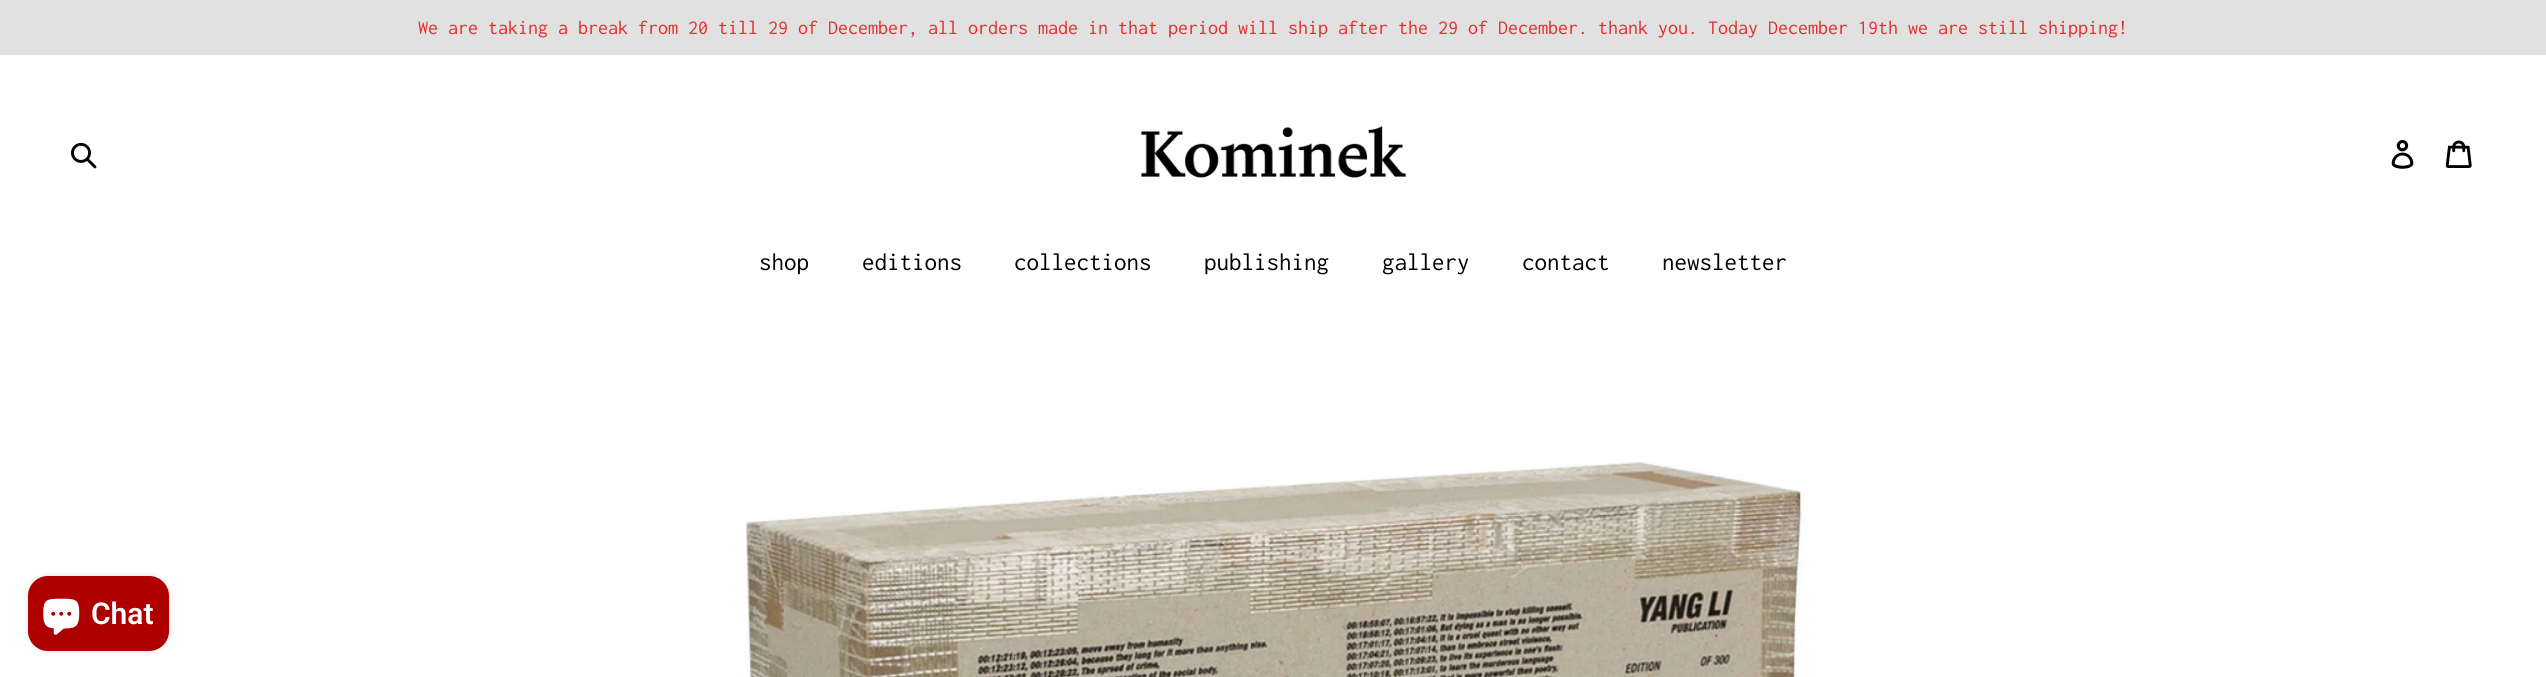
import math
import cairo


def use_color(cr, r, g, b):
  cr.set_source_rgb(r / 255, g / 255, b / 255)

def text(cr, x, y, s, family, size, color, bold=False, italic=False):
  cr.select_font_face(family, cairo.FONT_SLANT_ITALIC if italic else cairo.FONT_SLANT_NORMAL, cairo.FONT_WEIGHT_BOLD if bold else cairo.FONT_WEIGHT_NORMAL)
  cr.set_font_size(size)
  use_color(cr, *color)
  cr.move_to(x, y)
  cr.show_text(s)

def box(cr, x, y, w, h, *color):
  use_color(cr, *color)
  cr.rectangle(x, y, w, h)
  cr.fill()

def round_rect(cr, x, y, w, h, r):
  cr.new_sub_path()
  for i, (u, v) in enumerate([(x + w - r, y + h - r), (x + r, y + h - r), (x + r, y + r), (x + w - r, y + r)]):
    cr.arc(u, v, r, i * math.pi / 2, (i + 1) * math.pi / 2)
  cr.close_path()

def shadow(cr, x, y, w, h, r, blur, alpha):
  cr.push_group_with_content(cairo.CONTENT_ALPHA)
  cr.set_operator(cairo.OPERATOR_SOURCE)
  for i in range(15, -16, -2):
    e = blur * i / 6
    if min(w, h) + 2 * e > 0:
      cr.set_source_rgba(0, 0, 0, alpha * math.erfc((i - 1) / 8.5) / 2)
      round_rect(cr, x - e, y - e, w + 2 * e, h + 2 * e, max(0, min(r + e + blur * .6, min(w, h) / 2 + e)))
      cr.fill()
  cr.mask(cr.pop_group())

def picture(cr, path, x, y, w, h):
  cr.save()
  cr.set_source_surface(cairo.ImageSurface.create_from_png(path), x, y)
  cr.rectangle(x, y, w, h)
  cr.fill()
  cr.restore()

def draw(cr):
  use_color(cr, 255, 255, 255)
  cr.paint()
  box(cr, 0, 0, 2546, 55, 225, 225, 225)
  picture(cr, "img_01.png", 71, 142, 26, 27)
  picture(cr, "img_02.png", 1140, 126, 267, 52)
  picture(cr, "img_03.png", 2391, 140, 23, 29)
  picture(cr, "img_04.png", 2445, 140, 27, 28)
  use_color(cr, 0, 0, 0)
  shadow(cr, 28, 576, 141, 75, 20, 3, 0.15)
  use_color(cr, 174, 0, 0)
  round_rect(cr, 28, 576, 141, 75, 20)
  cr.fill()
  picture(cr, "img_05.png", 43, 598, 37, 37)
  picture(cr, "img_06.png", 745, 462, 1060, 215)
  text(cr, 418, 34, "We are taking a break from 20 till 29 of December, all orders made in that period will ship after the 29 of December. thank you. Today December 19th we are still shipping!", "Inconsolata", 20, (227, 44, 43))
  text(cr, 759, 270, "shop", "Inconsolata", 25, (0, 0, 0))
  text(cr, 862, 270, "editions", "Inconsolata", 25, (0, 0, 0))
  text(cr, 1014, 270, "collections", "Inconsolata", 25, (0, 0, 0))
  text(cr, 1204, 270, "publishing", "Inconsolata", 25, (0, 0, 0))
  text(cr, 1382, 270, "gallery", "Inconsolata", 25, (0, 0, 0))
  text(cr, 1522, 270, "contact", "Inconsolata", 25, (0, 0, 0))
  text(cr, 1662, 270, "newsletter", "Inconsolata", 25, (0, 0, 0))
  text(cr, 91, 624, "Chat", "Roboto SemiBold", 30, (255, 255, 255))


surface = cairo.ImageSurface(cairo.FORMAT_RGB24, 2546, 677)
cr = cairo.Context(surface)
options = cairo.FontOptions()
options.set_hint_metrics(cairo.HINT_METRICS_OFF)
options.set_hint_style(cairo.HINT_STYLE_NONE)
cr.set_font_options(options)
cr.set_miter_limit(4)
draw(cr)
surface.write_to_png("out.png")
